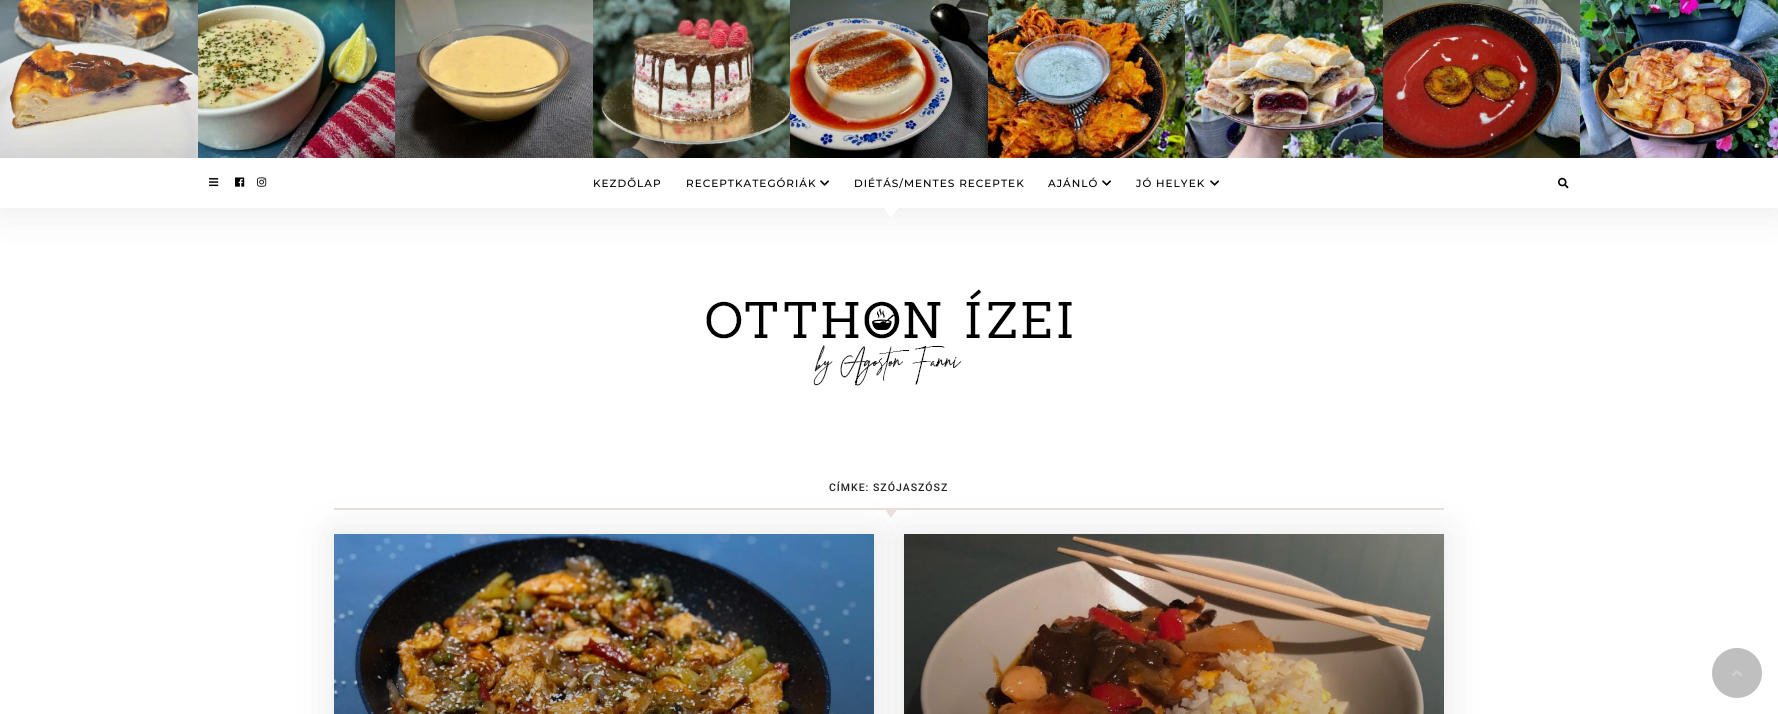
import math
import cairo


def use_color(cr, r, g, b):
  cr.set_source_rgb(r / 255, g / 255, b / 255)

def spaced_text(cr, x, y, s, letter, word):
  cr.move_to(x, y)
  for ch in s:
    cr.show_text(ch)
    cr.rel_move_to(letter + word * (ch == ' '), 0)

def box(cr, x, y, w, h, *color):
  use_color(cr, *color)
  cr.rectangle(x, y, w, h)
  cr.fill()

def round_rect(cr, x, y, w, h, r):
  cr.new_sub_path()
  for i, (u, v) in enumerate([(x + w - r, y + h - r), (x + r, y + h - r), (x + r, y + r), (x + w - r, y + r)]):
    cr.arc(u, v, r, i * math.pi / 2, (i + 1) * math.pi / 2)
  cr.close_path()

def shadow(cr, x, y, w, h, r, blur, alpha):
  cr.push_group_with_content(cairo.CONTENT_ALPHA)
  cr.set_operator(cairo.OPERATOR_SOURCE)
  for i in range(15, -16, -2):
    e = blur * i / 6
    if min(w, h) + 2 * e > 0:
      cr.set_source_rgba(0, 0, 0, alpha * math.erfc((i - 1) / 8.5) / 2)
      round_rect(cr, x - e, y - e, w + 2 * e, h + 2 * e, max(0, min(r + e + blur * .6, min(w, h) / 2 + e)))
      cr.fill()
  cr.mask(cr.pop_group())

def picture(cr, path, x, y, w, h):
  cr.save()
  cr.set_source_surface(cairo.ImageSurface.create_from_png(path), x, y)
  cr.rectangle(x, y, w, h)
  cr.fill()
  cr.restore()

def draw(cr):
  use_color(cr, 255, 255, 255)
  cr.paint()
  picture(cr, "img_01.png", 0, 0, 198, 158)
  picture(cr, "img_02.png", 198, 0, 197, 158)
  picture(cr, "img_03.png", 395, 0, 198, 158)
  picture(cr, "img_04.png", 593, 0, 197, 158)
  picture(cr, "img_05.png", 790, 0, 198, 158)
  picture(cr, "img_06.png", 988, 0, 197, 158)
  picture(cr, "img_07.png", 1185, 0, 198, 158)
  picture(cr, "img_08.png", 1383, 0, 197, 158)
  picture(cr, "img_09.png", 1580, 0, 198, 158)
  cr.save()
  cr.set_fill_rule(cairo.FILL_RULE_EVEN_ODD)
  cr.new_path()
  cr.move_to(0, 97)
  cr.line_to(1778, 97)
  cr.line_to(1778, 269)
  cr.line_to(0, 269)
  cr.close_path()
  cr.move_to(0, 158)
  cr.line_to(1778, 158)
  cr.line_to(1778, 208)
  cr.line_to(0, 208)
  cr.close_path()
  cr.clip()
  use_color(cr, 0, 0, 0)
  shadow(cr, 0, 158, 1778, 50, 0, 20, 0.1)
  cr.restore()
  picture(cr, "img_10.png", 209, 178, 10, 9)
  picture(cr, "img_11.png", 235, 177, 10, 10)
  picture(cr, "img_12.png", 257, 177, 10, 10)
  picture(cr, "img_13.png", 820, 180, 9, 6)
  picture(cr, "img_13.png", 1102, 180, 9, 6)
  picture(cr, "img_13.png", 1210, 180, 9, 6)
  picture(cr, "img_14.png", 1558, 177, 11, 12)
  use_color(cr, 255, 255, 255)
  cr.new_path()
  cr.move_to(884, 208)
  cr.line_to(898, 208)
  cr.line_to(891, 218)
  cr.close_path()
  cr.fill()
  picture(cr, "img_15.png", 706, 289, 366, 97)
  box(cr, 334, 508, 1110, 2, 234, 223, 219)
  use_color(cr, 0, 0, 0)
  shadow(cr, 334, 534, 540, 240, 0, 20, 0.1)
  picture(cr, "img_16.png", 334, 534, 540, 180)
  shadow(cr, 904, 534, 540, 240, 0, 20, 0.1)
  picture(cr, "img_17.png", 904, 534, 540, 180)
  use_color(cr, 234, 223, 219)
  cr.new_path()
  cr.move_to(884, 508)
  cr.line_to(898, 508)
  cr.line_to(891, 518)
  cr.close_path()
  cr.fill()
  use_color(cr, 191, 191, 191)
  cr.arc(1737, 673, 25, 0, 2 * math.pi)
  cr.fill()
  picture(cr, "img_18.png", 1732, 670, 10, 6)
  cr.select_font_face("Montserrat Medium")
  cr.set_font_size(10.5)
  use_color(cr, 0, 0, 0)
  spaced_text(cr, 593, 187, "KEZDŐLAP", 1, 0)
  spaced_text(cr, 686, 187, "RECEPTKATEGÓRIÁK", 1, 0)
  spaced_text(cr, 854, 187, "DIÉTÁS/MENTES RECEPTEK", 1, 0)
  spaced_text(cr, 1048, 187, "AJÁNLÓ", 1, 0)
  spaced_text(cr, 1136, 187, "JÓ HELYEK", 1, 0)
  cr.select_font_face("Roboto Medium")
  use_color(cr, 33, 37, 41)
  spaced_text(cr, 829, 491, "CÍMKE: SZÓJASZÓSZ", 1, 0)


surface = cairo.ImageSurface(cairo.FORMAT_RGB24, 1778, 714)
cr = cairo.Context(surface)
options = cairo.FontOptions()
options.set_hint_metrics(cairo.HINT_METRICS_OFF)
options.set_hint_style(cairo.HINT_STYLE_NONE)
cr.set_font_options(options)
cr.set_miter_limit(4)
draw(cr)
surface.write_to_png("out.png")
